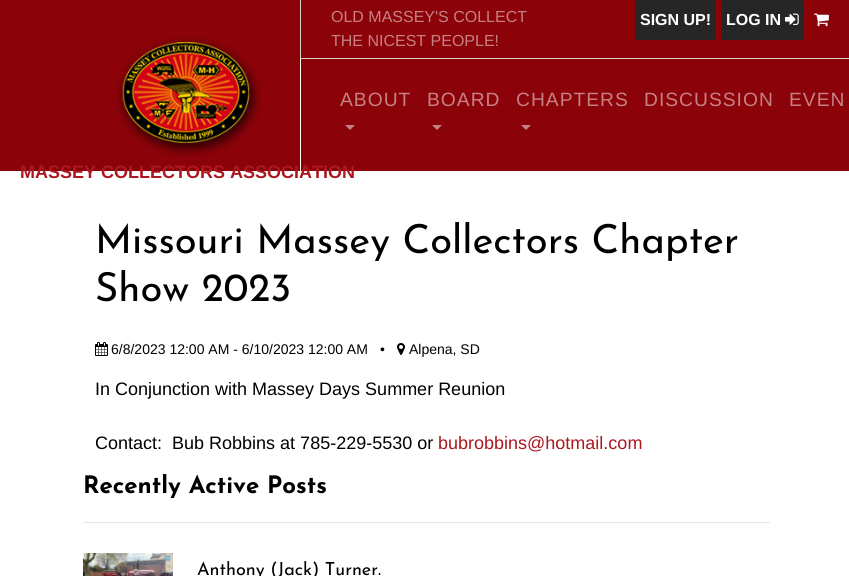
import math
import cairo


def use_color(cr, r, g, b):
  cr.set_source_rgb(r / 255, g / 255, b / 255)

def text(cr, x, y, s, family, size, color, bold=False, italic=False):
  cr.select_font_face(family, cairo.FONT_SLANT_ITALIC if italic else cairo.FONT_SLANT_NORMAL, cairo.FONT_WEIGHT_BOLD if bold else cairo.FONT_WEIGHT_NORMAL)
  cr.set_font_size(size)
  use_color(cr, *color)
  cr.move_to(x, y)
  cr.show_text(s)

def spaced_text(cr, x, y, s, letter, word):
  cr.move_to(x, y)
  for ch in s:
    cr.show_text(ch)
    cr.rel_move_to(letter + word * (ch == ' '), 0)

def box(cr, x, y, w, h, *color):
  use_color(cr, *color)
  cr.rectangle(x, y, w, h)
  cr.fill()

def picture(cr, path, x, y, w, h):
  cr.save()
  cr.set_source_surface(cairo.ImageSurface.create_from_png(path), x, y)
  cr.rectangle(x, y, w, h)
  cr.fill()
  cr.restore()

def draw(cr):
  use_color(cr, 255, 255, 255)
  cr.paint()
  box(cr, 0, 0, 849, 171, 140, 2, 9)
  box(cr, 300, 58, 549, 1, 215, 212, 204)
  box(cr, 300, 0, 1, 59, 215, 212, 204)
  box(cr, 635, 0, 81, 40, 38, 38, 38)
  box(cr, 721, 0, 83, 40, 38, 38, 38)
  picture(cr, "img_01.png", 785, 13, 14, 12)
  picture(cr, "img_02.png", 814, 13, 15, 14)
  box(cr, 300, 59, 1, 112, 255, 255, 255)
  use_color(cr, 198, 129, 132)
  cr.new_path()
  cr.move_to(345, 125)
  cr.line_to(355, 125)
  cr.line_to(350, 130)
  cr.close_path()
  cr.fill()
  cr.new_path()
  cr.move_to(432, 125)
  cr.line_to(442, 125)
  cr.line_to(437, 130)
  cr.close_path()
  cr.fill()
  cr.new_path()
  cr.move_to(521, 125)
  cr.line_to(531, 125)
  cr.line_to(526, 130)
  cr.close_path()
  cr.fill()
  picture(cr, "img_03.png", 116, 36, 146, 121)
  picture(cr, "img_04.png", 95, 342, 13, 14)
  picture(cr, "img_05.png", 397, 343, 8, 12)
  box(cr, 83, 522, 687, 1, 230, 230, 230)
  picture(cr, "img_06.png", 83, 553, 90, 23)
  text(cr, 331, 22, "OLD MASSEY'S COLLECT", "Liberation Sans", 16, (198, 129, 132))
  text(cr, 331, 46, "THE NICEST PEOPLE!", "Liberation Sans", 16, (198, 129, 132))
  text(cr, 640, 25, "SIGN UP!", "Liberation Sans", 16, (255, 255, 255), bold=True)
  text(cr, 726, 25, "LOG IN", "Liberation Sans", 16, (255, 255, 255), bold=True)
  cr.select_font_face("Liberation Sans")
  cr.set_font_size(19.25)
  use_color(cr, 198, 129, 132)
  spaced_text(cr, 340, 106, "ABOUT", 1, 0)
  spaced_text(cr, 427, 106, "BOARD", 1, 0)
  spaced_text(cr, 516, 106, "CHAPTERS", 1, 0)
  spaced_text(cr, 644, 106, "DISCUSSION", 1, 0)
  spaced_text(cr, 789, 106, "EVEN", 1, 0)
  text(cr, 20, 178, "MASSEY COLLECTORS ASSOCIATION", "Liberation Sans", 18, (171, 24, 31), bold=True)
  text(cr, 95, 253, "Missouri Massey Collectors Chapter", "Josefin Sans", 40, (0, 0, 0))
  text(cr, 95, 301, "Show 2023", "Josefin Sans", 40, (0, 0, 0))
  text(cr, 111, 354, "6/8/2023 12:00 AM - 6/10/2023 12:00 AM", "Liberation Sans", 14, (0, 0, 0))
  text(cr, 380, 354, "•", "Liberation Sans", 14, (0, 0, 0))
  text(cr, 409, 354, "Alpena, SD", "Liberation Sans", 14, (0, 0, 0))
  text(cr, 95, 395, "In Conjunction with Massey Days Summer Reunion", "Liberation Sans", 18, (0, 0, 0))
  text(cr, 95, 449, "Contact:  Bub Robbins at 785-229-5530 or", "Liberation Sans", 18, (0, 0, 0))
  text(cr, 438, 449, "bubrobbins@hotmail.com", "Liberation Sans", 18, (171, 24, 31))
  text(cr, 83, 493, "Recently Active Posts", "Josefin Sans", 24, (0, 0, 0), bold=True)
  text(cr, 197, 575, "Anthony (Jack) Turner.", "Josefin Sans", 18, (0, 0, 0))


surface = cairo.ImageSurface(cairo.FORMAT_RGB24, 849, 576)
cr = cairo.Context(surface)
options = cairo.FontOptions()
options.set_hint_metrics(cairo.HINT_METRICS_OFF)
options.set_hint_style(cairo.HINT_STYLE_NONE)
cr.set_font_options(options)
cr.set_miter_limit(4)
draw(cr)
surface.write_to_png("out.png")
